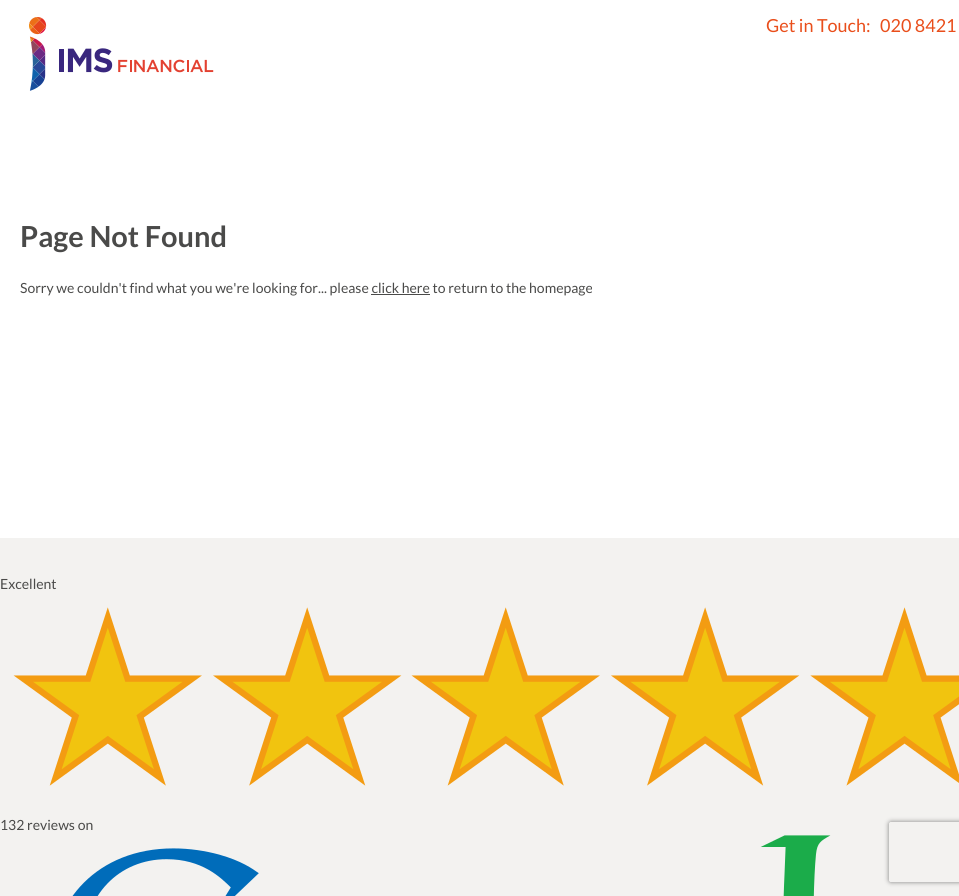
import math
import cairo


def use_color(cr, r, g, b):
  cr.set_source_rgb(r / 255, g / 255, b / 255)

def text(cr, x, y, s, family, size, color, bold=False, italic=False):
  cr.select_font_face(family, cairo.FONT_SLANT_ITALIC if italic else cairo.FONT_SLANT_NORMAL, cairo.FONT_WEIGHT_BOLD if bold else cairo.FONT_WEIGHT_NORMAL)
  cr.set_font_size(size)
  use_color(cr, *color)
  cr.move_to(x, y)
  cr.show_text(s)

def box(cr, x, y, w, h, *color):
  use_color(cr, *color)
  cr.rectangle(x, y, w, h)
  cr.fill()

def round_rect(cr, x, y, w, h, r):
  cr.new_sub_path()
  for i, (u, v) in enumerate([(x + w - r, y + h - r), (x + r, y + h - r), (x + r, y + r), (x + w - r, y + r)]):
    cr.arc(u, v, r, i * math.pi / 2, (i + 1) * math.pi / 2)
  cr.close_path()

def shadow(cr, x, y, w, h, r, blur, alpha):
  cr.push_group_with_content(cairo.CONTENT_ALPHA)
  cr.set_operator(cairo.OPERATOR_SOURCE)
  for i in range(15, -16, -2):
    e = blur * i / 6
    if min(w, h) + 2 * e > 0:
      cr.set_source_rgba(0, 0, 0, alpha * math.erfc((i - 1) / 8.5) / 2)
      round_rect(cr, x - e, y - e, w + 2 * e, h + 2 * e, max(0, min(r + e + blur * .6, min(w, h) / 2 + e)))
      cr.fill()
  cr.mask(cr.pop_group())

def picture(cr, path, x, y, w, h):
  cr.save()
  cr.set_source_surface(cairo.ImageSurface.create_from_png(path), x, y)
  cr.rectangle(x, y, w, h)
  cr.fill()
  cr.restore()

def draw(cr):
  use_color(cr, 255, 255, 255)
  cr.paint()
  picture(cr, "img_01.png", 29, 17, 185, 74)
  box(cr, 371, 294, 59, 1, 74, 74, 73)
  box(cr, 0, 538, 959, 358, 243, 242, 240)
  picture(cr, "img_02.png", 13, 607, 946, 179)
  picture(cr, "img_03.png", 72, 835, 759, 61)
  cr.save()
  cr.set_fill_rule(cairo.FILL_RULE_EVEN_ODD)
  cr.new_path()
  cr.move_to(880, 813)
  cr.line_to(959, 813)
  cr.line_to(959, 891)
  cr.line_to(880, 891)
  cr.close_path()
  cr.move_to(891, 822)
  cr.line_to(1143, 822)
  cr.curve_to(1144, 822, 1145, 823, 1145, 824)
  cr.line_to(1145, 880)
  cr.curve_to(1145, 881, 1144, 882, 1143, 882)
  cr.line_to(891, 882)
  cr.curve_to(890, 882, 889, 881, 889, 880)
  cr.line_to(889, 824)
  cr.curve_to(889, 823, 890, 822, 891, 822)
  cr.close_path()
  cr.clip()
  use_color(cr, 128, 128, 128)
  shadow(cr, 889, 822, 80, 60, 2, 2.5, 1)
  cr.restore()
  text(cr, 766, 32, "Get in Touch:", "Lato", 18, (233, 78, 27))
  text(cr, 880, 32, "020 8421", "Lato", 18, (233, 78, 27))
  text(cr, 20, 247, "Page Not Found", "Lato", 29, (74, 74, 73), bold=True)
  text(cr, 20, 293, "Sorry we couldn't find what you we're looking for... please click here to return to the homepage", "Lato", 14, (74, 74, 73))
  text(cr, 0, 589, "Excellent", "Lato", 14, (74, 74, 73))
  text(cr, 0, 830, "132 reviews on", "Lato", 14, (74, 74, 73))


surface = cairo.ImageSurface(cairo.FORMAT_RGB24, 959, 896)
cr = cairo.Context(surface)
options = cairo.FontOptions()
options.set_hint_metrics(cairo.HINT_METRICS_OFF)
options.set_hint_style(cairo.HINT_STYLE_NONE)
cr.set_font_options(options)
cr.set_miter_limit(4)
draw(cr)
surface.write_to_png("out.png")
